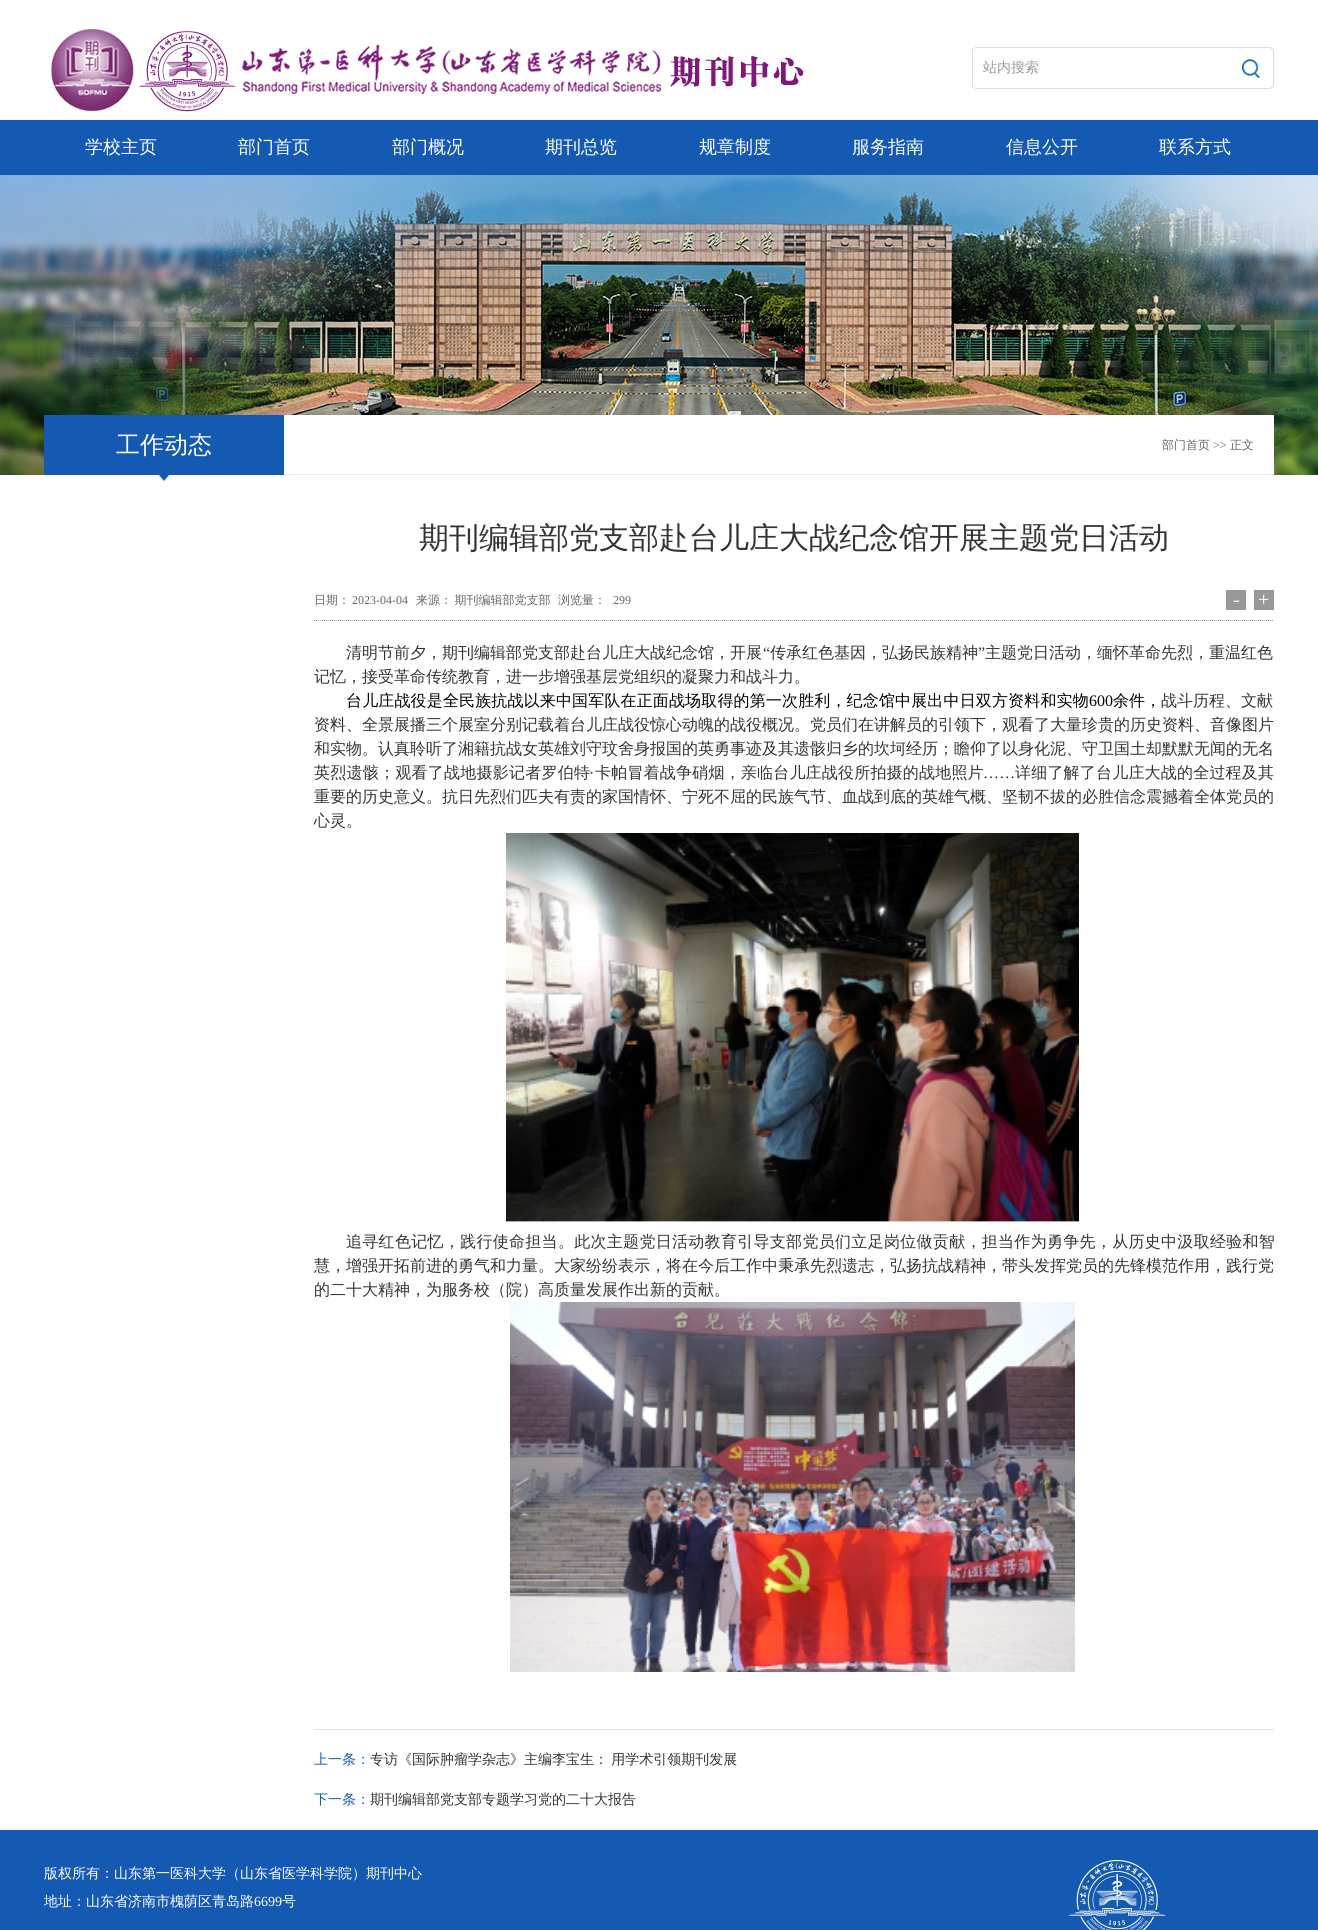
import math
import cairo


def use_color(cr, r, g, b):
  cr.set_source_rgb(r / 255, g / 255, b / 255)

def text(cr, x, y, s, family, size, color, bold=False, italic=False):
  cr.select_font_face(family, cairo.FONT_SLANT_ITALIC if italic else cairo.FONT_SLANT_NORMAL, cairo.FONT_WEIGHT_BOLD if bold else cairo.FONT_WEIGHT_NORMAL)
  cr.set_font_size(size)
  use_color(cr, *color)
  cr.move_to(x, y)
  cr.show_text(s)

def spaced_text(cr, x, y, s, letter, word):
  cr.move_to(x, y)
  for ch in s:
    cr.show_text(ch)
    cr.rel_move_to(letter + word * (ch == ' '), 0)

def box(cr, x, y, w, h, *color):
  use_color(cr, *color)
  cr.rectangle(x, y, w, h)
  cr.fill()

def round_rect(cr, x, y, w, h, r):
  cr.new_sub_path()
  for i, (u, v) in enumerate([(x + w - r, y + h - r), (x + r, y + h - r), (x + r, y + r), (x + w - r, y + r)]):
    cr.arc(u, v, r, i * math.pi / 2, (i + 1) * math.pi / 2)
  cr.close_path()

def picture(cr, path, x, y, w, h):
  cr.save()
  cr.set_source_surface(cairo.ImageSurface.create_from_png(path), x, y)
  cr.rectangle(x, y, w, h)
  cr.fill()
  cr.restore()

def draw(cr):
  use_color(cr, 255, 255, 255)
  cr.paint()
  picture(cr, "img_01.png", 51, 29, 753, 83)
  round_rect(cr, 972.5, 47.5, 301, 41, 4.5)
  use_color(cr, 221, 221, 221)
  cr.set_line_width(1)
  cr.stroke()
  picture(cr, "img_02.png", 1242, 59, 18, 19)
  box(cr, 0, 120, 1318, 55, 20, 90, 178)
  picture(cr, "img_03.png", 0, 175, 1318, 300)
  box(cr, 284, 415, 990, 59, 255, 255, 255)
  box(cr, 284, 474, 990, 1, 238, 238, 238)
  box(cr, 44, 415, 240, 60, 20, 90, 178)
  cr.new_path()
  cr.move_to(159, 475)
  cr.line_to(169, 475)
  cr.line_to(164, 481)
  cr.close_path()
  cr.fill()
  cr.new_path()
  cr.move_to(314, 620.5)
  cr.line_to(1274, 620.5)
  use_color(cr, 153, 153, 153)
  cr.set_dash([1, 1])
  cr.stroke()
  box(cr, 1226, 590, 20, 20, 153, 153, 153)
  box(cr, 1254, 590, 20, 20, 153, 153, 153)
  picture(cr, "img_04.png", 506, 833, 573, 389)
  picture(cr, "img_05.png", 510, 1302, 565, 370)
  box(cr, 314, 1729, 960, 1, 228, 228, 228)
  box(cr, 0, 1830, 1318, 100, 20, 90, 178)
  picture(cr, "img_06.png", 1068, 1860, 98, 70)
  text(cr, 983, 72, "站内搜索", "WenQuanYi Zen Hei Medium", 14, (153, 153, 153))
  text(cr, 85, 153, "学校主页", "WenQuanYi Zen Hei Medium", 18, (255, 255, 255))
  text(cr, 238, 153, "部门首页", "WenQuanYi Zen Hei Medium", 18, (255, 255, 255))
  text(cr, 392, 153, "部门概况", "WenQuanYi Zen Hei Medium", 18, (255, 255, 255))
  text(cr, 545, 153, "期刊总览", "WenQuanYi Zen Hei Medium", 18, (255, 255, 255))
  text(cr, 699, 153, "规章制度", "WenQuanYi Zen Hei Medium", 18, (255, 255, 255))
  text(cr, 852, 153, "服务指南", "WenQuanYi Zen Hei Medium", 18, (255, 255, 255))
  text(cr, 1006, 153, "信息公开", "WenQuanYi Zen Hei Medium", 18, (255, 255, 255))
  text(cr, 1159, 153, "联系方式", "WenQuanYi Zen Hei Medium", 18, (255, 255, 255))
  text(cr, 116, 453, "工作动态", "WenQuanYi Zen Hei Medium", 24, (255, 255, 255))
  text(cr, 1162, 449, "部门首页", "WenQuanYi Zen Hei Medium", 12, (102, 102, 102))
  text(cr, 1213, 449, ">>", "Liberation Serif", 12, (102, 102, 102))
  text(cr, 1230, 449, "正文", "WenQuanYi Zen Hei Medium", 12, (102, 102, 102))
  text(cr, 419, 548, "期刊编辑部党支部赴台儿庄大战纪念馆开展主题党日活动", "WenQuanYi Zen Hei Medium", 30, (51, 51, 51))
  text(cr, 314, 604, "日期：", "WenQuanYi Zen Hei Medium", 12, (102, 102, 102))
  text(cr, 352, 604, "2023-04-04", "Liberation Serif", 12, (102, 102, 102))
  cr.select_font_face("WenQuanYi Zen Hei Medium")
  spaced_text(cr, 416, 604, "来源： 期刊编辑部党支部", 0, -1)
  text(cr, 558, 604, "浏览量：", "WenQuanYi Zen Hei Medium", 12, (102, 102, 102))
  text(cr, 613, 604, "299", "Liberation Serif", 12, (102, 102, 102))
  text(cr, 1233, 606, "-", "Liberation Serif", 20, (255, 255, 255))
  text(cr, 1258, 606, "+", "Liberation Serif", 20, (255, 255, 255))
  text(cr, 346, 658, "清明节前夕，期刊编辑部党支部赴台儿庄大战纪念馆，开展", "WenQuanYi Zen Hei Medium", 16, (51, 51, 51))
  text(cr, 763, 658, "“", "Liberation Serif", 16, (51, 51, 51))
  text(cr, 770, 658, "传承红色基因，弘扬民族精神", "WenQuanYi Zen Hei Medium", 16, (51, 51, 51))
  text(cr, 978, 658, "”", "Liberation Serif", 16, (51, 51, 51))
  text(cr, 985, 658, "主题党日活动，缅怀革命先烈，重温红色", "WenQuanYi Zen Hei Medium", 16, (51, 51, 51))
  text(cr, 314, 682, "记忆，接受革命传统教育，进一步增强基层党组织的凝聚力和战斗力。", "WenQuanYi Zen Hei Medium", 16, (51, 51, 51))
  use_color(cr, 0, 0, 0)
  spaced_text(cr, 346, 706, "台儿庄战役是全民族抗战以来中国军队在正面战场取得的第一次胜利，纪念馆中展出中日双方资料和实物", 0.15, 0)
  text(cr, 1089, 706, "600", "Liberation Serif", 16, (0, 0, 0))
  text(cr, 1113, 706, "余件，", "WenQuanYi Zen Hei Medium", 16, (0, 0, 0))
  text(cr, 1161, 706, "战斗历程、文献", "WenQuanYi Zen Hei Medium", 16, (51, 51, 51))
  text(cr, 314, 730, "资料、全景展播三个展室分别记载着台儿庄战役惊心动魄的战役概况。党员们在讲解员的引领下，观看了大量珍贵的历史资料、音像图片", "WenQuanYi Zen Hei Medium", 16, (51, 51, 51))
  text(cr, 314, 754, "和实物。认真聆听了湘籍抗战女英雄刘守玟舍身报国的英勇事迹及其遗骸归乡的坎坷经历；瞻仰了以身化泥、守卫国土却默默无闻的无名", "WenQuanYi Zen Hei Medium", 16, (51, 51, 51))
  spaced_text(cr, 314, 778, "英烈遗骸；观看了战地摄影记者罗伯特", 0.25, 0)
  cr.select_font_face("Liberation Serif")
  spaced_text(cr, 589, 778, "·", 0.2, 0)
  cr.select_font_face("WenQuanYi Zen Hei Medium")
  spaced_text(cr, 595, 778, "卡帕冒着战争硝烟，亲临台儿庄战役所拍摄的战地照片", 0.2, 0)
  spaced_text(cr, 1015, 778, "详细了解了台儿庄大战的全过程及其", 0.2, 0)
  cr.select_font_face("Liberation Serif")
  spaced_text(cr, 983, 778, "……", 0.2, 0)
  text(cr, 314, 802, "重要的历史意义。抗日先烈们匹夫有责的家国情怀、宁死不屈的民族气节、血战到底的英雄气概、坚韧不拔的必胜信念震撼着全体党员的", "WenQuanYi Zen Hei Medium", 16, (51, 51, 51))
  text(cr, 314, 826, "心灵。", "WenQuanYi Zen Hei Medium", 16, (51, 51, 51))
  spaced_text(cr, 346, 1247, "追寻红色记忆，践行使命担当。此次主题党日活动教育引导支部党员们立足岗位做贡献，担当作为勇争先，从历史中汲取经验和智", 0.3, 0)
  text(cr, 314, 1271, "慧，增强开拓前进的勇气和力量。大家纷纷表示，将在今后工作中秉承先烈遗志，弘扬抗战精神，带头发挥党员的先锋模范作用，践行党", "WenQuanYi Zen Hei Medium", 16, (51, 51, 51))
  text(cr, 314, 1295, "的二十大精神，为服务校（院）高质量发展作出新的贡献。", "WenQuanYi Zen Hei Medium", 16, (51, 51, 51))
  text(cr, 314, 1764, "上一条：", "WenQuanYi Zen Hei Medium", 14, (20, 90, 178))
  use_color(cr, 51, 51, 51)
  spaced_text(cr, 370, 1764, "专访《国际肿瘤学杂志》主编李宝生： 用学术引领期刊发展", 0, -1)
  text(cr, 314, 1804, "下一条：", "WenQuanYi Zen Hei Medium", 14, (20, 90, 178))
  text(cr, 370, 1804, "期刊编辑部党支部专题学习党的二十大报告", "WenQuanYi Zen Hei Medium", 14, (51, 51, 51))
  text(cr, 44, 1878, "版权所有：山东第一医科大学（山东省医学科学院）期刊中心", "WenQuanYi Zen Hei Medium", 14, (255, 255, 255))
  text(cr, 44, 1906, "地址：山东省济南市槐荫区青岛路", "WenQuanYi Zen Hei Medium", 14, (255, 255, 255))
  text(cr, 254, 1906, "6699", "Liberation Serif", 14, (255, 255, 255))
  text(cr, 282, 1906, "号", "WenQuanYi Zen Hei Medium", 14, (255, 255, 255))


surface = cairo.ImageSurface(cairo.FORMAT_RGB24, 1318, 1930)
cr = cairo.Context(surface)
options = cairo.FontOptions()
options.set_hint_metrics(cairo.HINT_METRICS_OFF)
options.set_hint_style(cairo.HINT_STYLE_NONE)
cr.set_font_options(options)
cr.set_miter_limit(4)
draw(cr)
surface.write_to_png("out.png")
